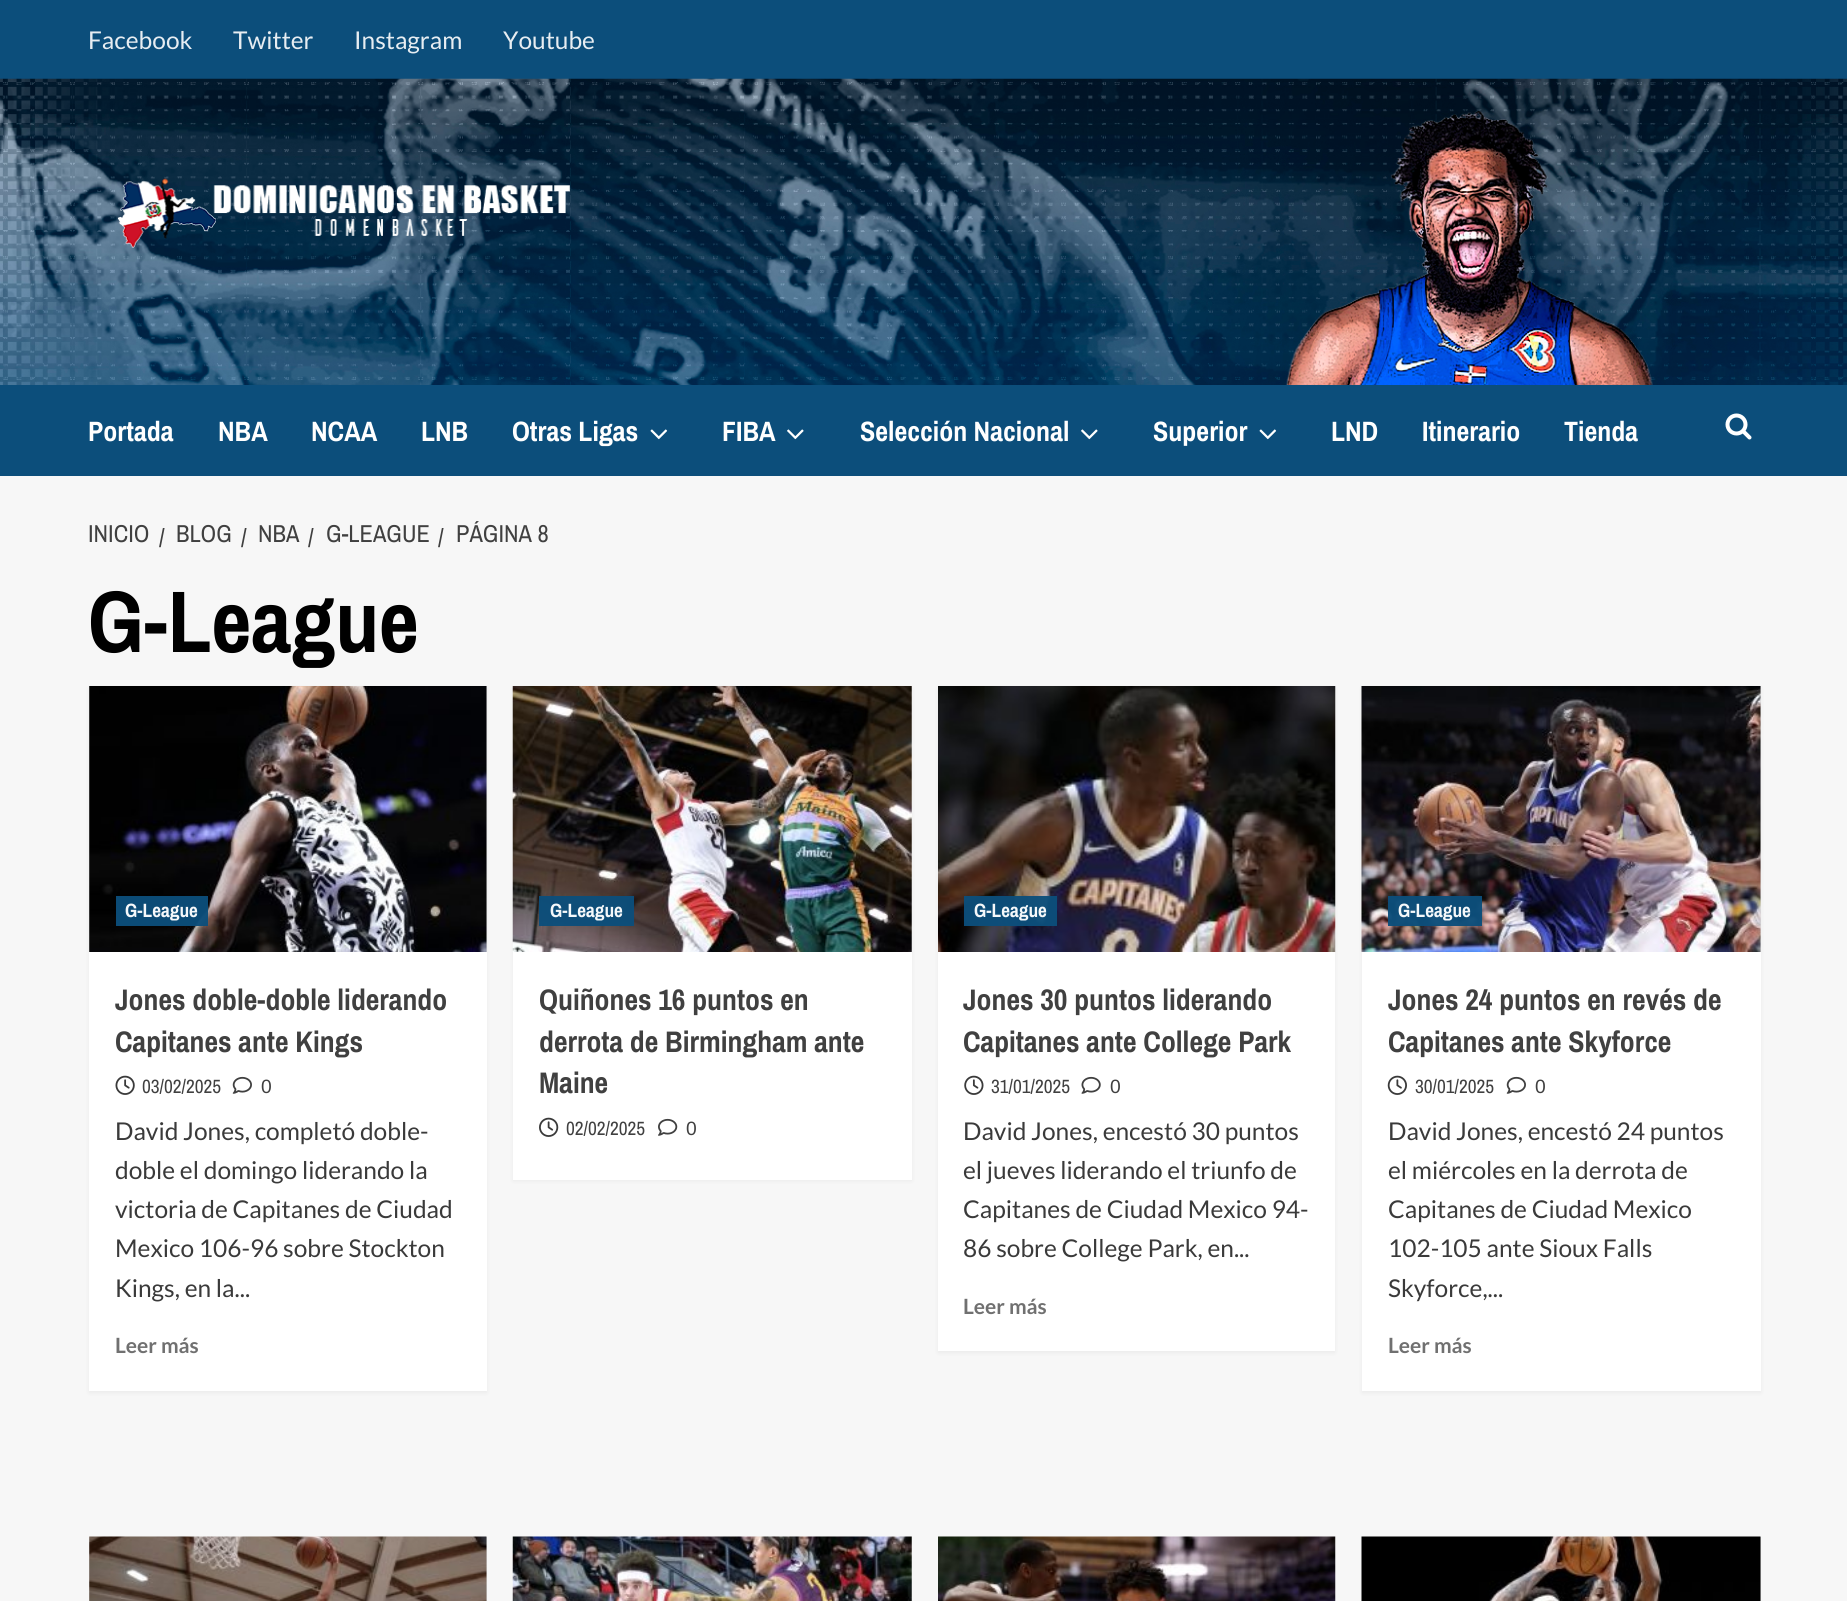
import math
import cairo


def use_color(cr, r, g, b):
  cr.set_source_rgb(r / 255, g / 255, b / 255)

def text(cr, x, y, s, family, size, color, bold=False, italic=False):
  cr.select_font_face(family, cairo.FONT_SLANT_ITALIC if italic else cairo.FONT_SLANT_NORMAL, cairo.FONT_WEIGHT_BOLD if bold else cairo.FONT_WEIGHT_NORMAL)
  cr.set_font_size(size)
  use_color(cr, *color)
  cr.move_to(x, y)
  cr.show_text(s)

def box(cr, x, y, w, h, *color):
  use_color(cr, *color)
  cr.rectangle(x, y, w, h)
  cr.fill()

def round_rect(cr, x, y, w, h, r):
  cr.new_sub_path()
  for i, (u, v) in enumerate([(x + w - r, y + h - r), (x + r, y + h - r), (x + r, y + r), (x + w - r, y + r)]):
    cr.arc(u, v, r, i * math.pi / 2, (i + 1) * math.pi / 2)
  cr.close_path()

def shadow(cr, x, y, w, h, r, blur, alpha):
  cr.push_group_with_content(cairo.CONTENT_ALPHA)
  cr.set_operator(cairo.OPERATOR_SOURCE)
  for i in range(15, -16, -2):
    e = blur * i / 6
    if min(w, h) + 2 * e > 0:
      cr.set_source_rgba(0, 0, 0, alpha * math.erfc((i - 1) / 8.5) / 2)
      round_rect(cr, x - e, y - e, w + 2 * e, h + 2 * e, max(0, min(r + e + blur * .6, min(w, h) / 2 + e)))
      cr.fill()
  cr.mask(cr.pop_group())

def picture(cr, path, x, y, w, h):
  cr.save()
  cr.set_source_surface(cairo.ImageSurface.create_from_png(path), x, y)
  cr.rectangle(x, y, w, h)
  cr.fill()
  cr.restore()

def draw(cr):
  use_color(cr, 247, 247, 247)
  cr.paint()
  box(cr, 0, 0, 1847, 79, 12, 78, 123)
  picture(cr, "img_01.png", 0, 78, 1847, 307)
  picture(cr, "img_02.png", 117, 178, 453, 70)
  box(cr, 0, 385, 1847, 91, 12, 78, 123)
  picture(cr, "img_03.png", 650, 429, 18, 11)
  picture(cr, "img_04.png", 787, 429, 17, 11)
  picture(cr, "img_04.png", 1081, 429, 17, 11)
  picture(cr, "img_03.png", 1259, 429, 18, 11)
  picture(cr, "img_05.png", 1725, 413, 27, 27)
  use_color(cr, 0, 0, 0)
  shadow(cr, 89, 688, 398, 705, 0, 2, 0.05)
  box(cr, 89, 952, 398, 439, 255, 255, 255)
  box(cr, 89, 686, 398, 266, 216, 216, 216)
  picture(cr, "img_06.png", 89, 686, 398, 266)
  cr.set_source_rgba(0.047, 0.306, 0.482, 0.96)
  cr.rectangle(116, 896, 92, 30)
  cr.fill()
  picture(cr, "img_07.png", 115, 1075, 20, 20)
  picture(cr, "img_08.png", 232, 1076, 20, 18)
  use_color(cr, 0, 0, 0)
  shadow(cr, 513, 688, 399, 493, 0, 2, 0.05)
  box(cr, 513, 686, 399, 494, 255, 255, 255)
  picture(cr, "img_09.png", 512, 686, 400, 266)
  cr.set_source_rgba(0.047, 0.306, 0.482, 0.96)
  cr.rectangle(539, 896, 95, 30)
  cr.fill()
  picture(cr, "img_10.png", 539, 1117, 20, 20)
  picture(cr, "img_11.png", 658, 1118, 20, 18)
  use_color(cr, 0, 0, 0)
  shadow(cr, 938, 688, 397, 665, 0, 2, 0.05)
  box(cr, 938, 952, 397, 399, 255, 255, 255)
  picture(cr, "img_12.png", 938, 686, 398, 266)
  cr.set_source_rgba(0.047, 0.306, 0.482, 0.96)
  cr.rectangle(964, 896, 93, 30)
  cr.fill()
  picture(cr, "img_13.png", 964, 1075, 20, 20)
  picture(cr, "img_14.png", 1081, 1076, 20, 18)
  use_color(cr, 0, 0, 0)
  shadow(cr, 1362, 688, 399, 705, 0, 2, 0.05)
  box(cr, 1362, 952, 399, 439, 255, 255, 255)
  box(cr, 1760, 686, 1, 266, 216, 216, 216)
  picture(cr, "img_15.png", 1361, 686, 400, 266)
  cr.set_source_rgba(0.047, 0.306, 0.482, 0.96)
  cr.rectangle(1388, 896, 94, 30)
  cr.fill()
  picture(cr, "img_16.png", 1387, 1075, 20, 20)
  picture(cr, "img_08.png", 1506, 1076, 20, 18)
  box(cr, 89, 1537, 398, 64, 216, 216, 216)
  picture(cr, "img_17.png", 89, 1536, 398, 65)
  picture(cr, "img_18.png", 512, 1536, 400, 65)
  picture(cr, "img_19.png", 938, 1536, 398, 65)
  box(cr, 1760, 1537, 1, 64, 216, 216, 216)
  picture(cr, "img_20.png", 1361, 1536, 400, 65)
  text(cr, 88, 49, "Facebook", "Lato", 24.5, (231, 237, 242))
  text(cr, 233, 49, "Twitter", "Lato", 24.5, (231, 237, 242))
  text(cr, 354, 49, "Instagram", "Lato", 24.5, (231, 237, 242))
  text(cr, 503, 49, "Youtube", "Lato", 24.5, (231, 237, 242))
  text(cr, 88, 441, "Portada", "Archivo Narrow", 28, (255, 255, 255), bold=True)
  text(cr, 218, 441, "NBA", "Archivo Narrow", 28, (255, 255, 255), bold=True)
  text(cr, 311, 441, "NCAA", "Archivo Narrow", 28, (255, 255, 255), bold=True)
  text(cr, 421, 441, "LNB", "Archivo Narrow", 28, (255, 255, 255), bold=True)
  text(cr, 512, 441, "Otras Ligas", "Archivo Narrow", 28, (255, 255, 255), bold=True)
  text(cr, 722, 441, "FIBA", "Archivo Narrow", 28, (255, 255, 255), bold=True)
  text(cr, 860, 441, "Selección Nacional", "Archivo Narrow", 28, (255, 255, 255), bold=True)
  text(cr, 1153, 441, "Superior", "Archivo Narrow", 28, (255, 255, 255), bold=True)
  text(cr, 1331, 441, "LND", "Archivo Narrow", 28, (255, 255, 255), bold=True)
  text(cr, 1422, 441, "Itinerario", "Archivo Narrow", 28, (255, 255, 255), bold=True)
  text(cr, 1564, 441, "Tienda", "Archivo Narrow", 28, (255, 255, 255), bold=True)
  text(cr, 88, 542, "INICIO", "Archivo Narrow", 24.5, (64, 64, 64))
  text(cr, 159, 546, "/", "Archivo Narrow", 24.5, (64, 64, 64))
  text(cr, 176, 542, "BLOG", "Archivo Narrow", 24.5, (64, 64, 64))
  text(cr, 241, 546, "/", "Archivo Narrow", 24.5, (64, 64, 64))
  text(cr, 258, 542, "NBA", "Archivo Narrow", 24.5, (64, 64, 64))
  text(cr, 308, 546, "/", "Archivo Narrow", 24.5, (64, 64, 64))
  text(cr, 326, 542, "G-LEAGUE", "Archivo Narrow", 24.5, (64, 64, 64))
  text(cr, 438, 546, "/", "Archivo Narrow", 24.5, (64, 64, 64))
  text(cr, 456, 542, "PÁGINA 8", "Archivo Narrow", 24.5, (64, 64, 64))
  text(cr, 88, 652, "G-League", "Archivo Narrow", 87.5, (0, 0, 0), bold=True)
  text(cr, 125, 917, "G-League", "Archivo Narrow", 19.25, (245, 248, 250), bold=True)
  text(cr, 115, 1010, "Jones doble-doble liderando", "Archivo Narrow", 29.75, (64, 64, 64), bold=True)
  text(cr, 115, 1052, "Capitanes ante Kings", "Archivo Narrow", 29.75, (64, 64, 64), bold=True)
  text(cr, 142, 1093, "03/02/2025", "Archivo Narrow", 19.25, (64, 64, 64))
  text(cr, 261, 1093, "0", "Liberation Sans", 19.25, (64, 64, 64))
  text(cr, 115, 1140, "David Jones, completó doble-", "Lato", 24.5, (58, 58, 58))
  text(cr, 115, 1179, "doble el domingo liderando la", "Lato", 24.5, (58, 58, 58))
  text(cr, 115, 1218, "victoria de Capitanes de Ciudad", "Lato", 24.5, (58, 58, 58))
  text(cr, 115, 1257, "Mexico 106-96 sobre Stockton", "Lato", 24.5, (58, 58, 58))
  text(cr, 115, 1297, "Kings, en la...", "Lato", 24.5, (58, 58, 58))
  text(cr, 115, 1353, "Leer más", "Lato", 21, (112, 112, 112), bold=True)
  text(cr, 550, 917, "G-League", "Archivo Narrow", 19.25, (245, 248, 250), bold=True)
  text(cr, 539, 1010, "Quiñones 16 puntos en", "Archivo Narrow", 29.75, (64, 64, 64), bold=True)
  text(cr, 539, 1052, "derrota de Birmingham ante", "Archivo Narrow", 29.75, (64, 64, 64), bold=True)
  text(cr, 539, 1093, "Maine", "Archivo Narrow", 29.75, (64, 64, 64), bold=True)
  text(cr, 566, 1135, "02/02/2025", "Archivo Narrow", 19.25, (64, 64, 64))
  text(cr, 686, 1135, "0", "Liberation Sans", 19.25, (64, 64, 64))
  text(cr, 974, 917, "G-League", "Archivo Narrow", 19.25, (245, 248, 250), bold=True)
  text(cr, 963, 1010, "Jones 30 puntos liderando", "Archivo Narrow", 29.75, (64, 64, 64), bold=True)
  text(cr, 963, 1052, "Capitanes ante College Park", "Archivo Narrow", 29.75, (64, 64, 64), bold=True)
  text(cr, 991, 1093, "31/01/2025", "Archivo Narrow", 19.25, (64, 64, 64))
  text(cr, 1110, 1093, "0", "Liberation Sans", 19.25, (64, 64, 64))
  text(cr, 963, 1140, "David Jones, encestó 30 puntos", "Lato", 24.5, (58, 58, 58))
  text(cr, 963, 1179, "el jueves liderando el triunfo de", "Lato", 24.5, (58, 58, 58))
  text(cr, 963, 1218, "Capitanes de Ciudad Mexico 94-", "Lato", 24.5, (58, 58, 58))
  text(cr, 963, 1257, "86 sobre College Park, en...", "Lato", 24.5, (58, 58, 58))
  text(cr, 963, 1314, "Leer más", "Lato", 21, (112, 112, 112), bold=True)
  text(cr, 1398, 917, "G-League", "Archivo Narrow", 19.25, (245, 248, 250), bold=True)
  text(cr, 1388, 1010, "Jones 24 puntos en revés de", "Archivo Narrow", 29.75, (64, 64, 64), bold=True)
  text(cr, 1388, 1052, "Capitanes ante Skyforce", "Archivo Narrow", 29.75, (64, 64, 64), bold=True)
  text(cr, 1415, 1093, "30/01/2025", "Archivo Narrow", 19.25, (64, 64, 64))
  text(cr, 1535, 1093, "0", "Liberation Sans", 19.25, (64, 64, 64))
  text(cr, 1388, 1140, "David Jones, encestó 24 puntos", "Lato", 24.5, (58, 58, 58))
  text(cr, 1388, 1179, "el miércoles en la derrota de", "Lato", 24.5, (58, 58, 58))
  text(cr, 1388, 1218, "Capitanes de Ciudad Mexico", "Lato", 24.5, (58, 58, 58))
  text(cr, 1388, 1257, "102-105 ante Sioux Falls", "Lato", 24.5, (58, 58, 58))
  text(cr, 1388, 1297, "Skyforce,...", "Lato", 24.5, (58, 58, 58))
  text(cr, 1388, 1353, "Leer más", "Lato", 21, (112, 112, 112), bold=True)


surface = cairo.ImageSurface(cairo.FORMAT_RGB24, 1847, 1601)
cr = cairo.Context(surface)
options = cairo.FontOptions()
options.set_hint_metrics(cairo.HINT_METRICS_OFF)
options.set_hint_style(cairo.HINT_STYLE_NONE)
cr.set_font_options(options)
cr.set_miter_limit(4)
draw(cr)
surface.write_to_png("out.png")
